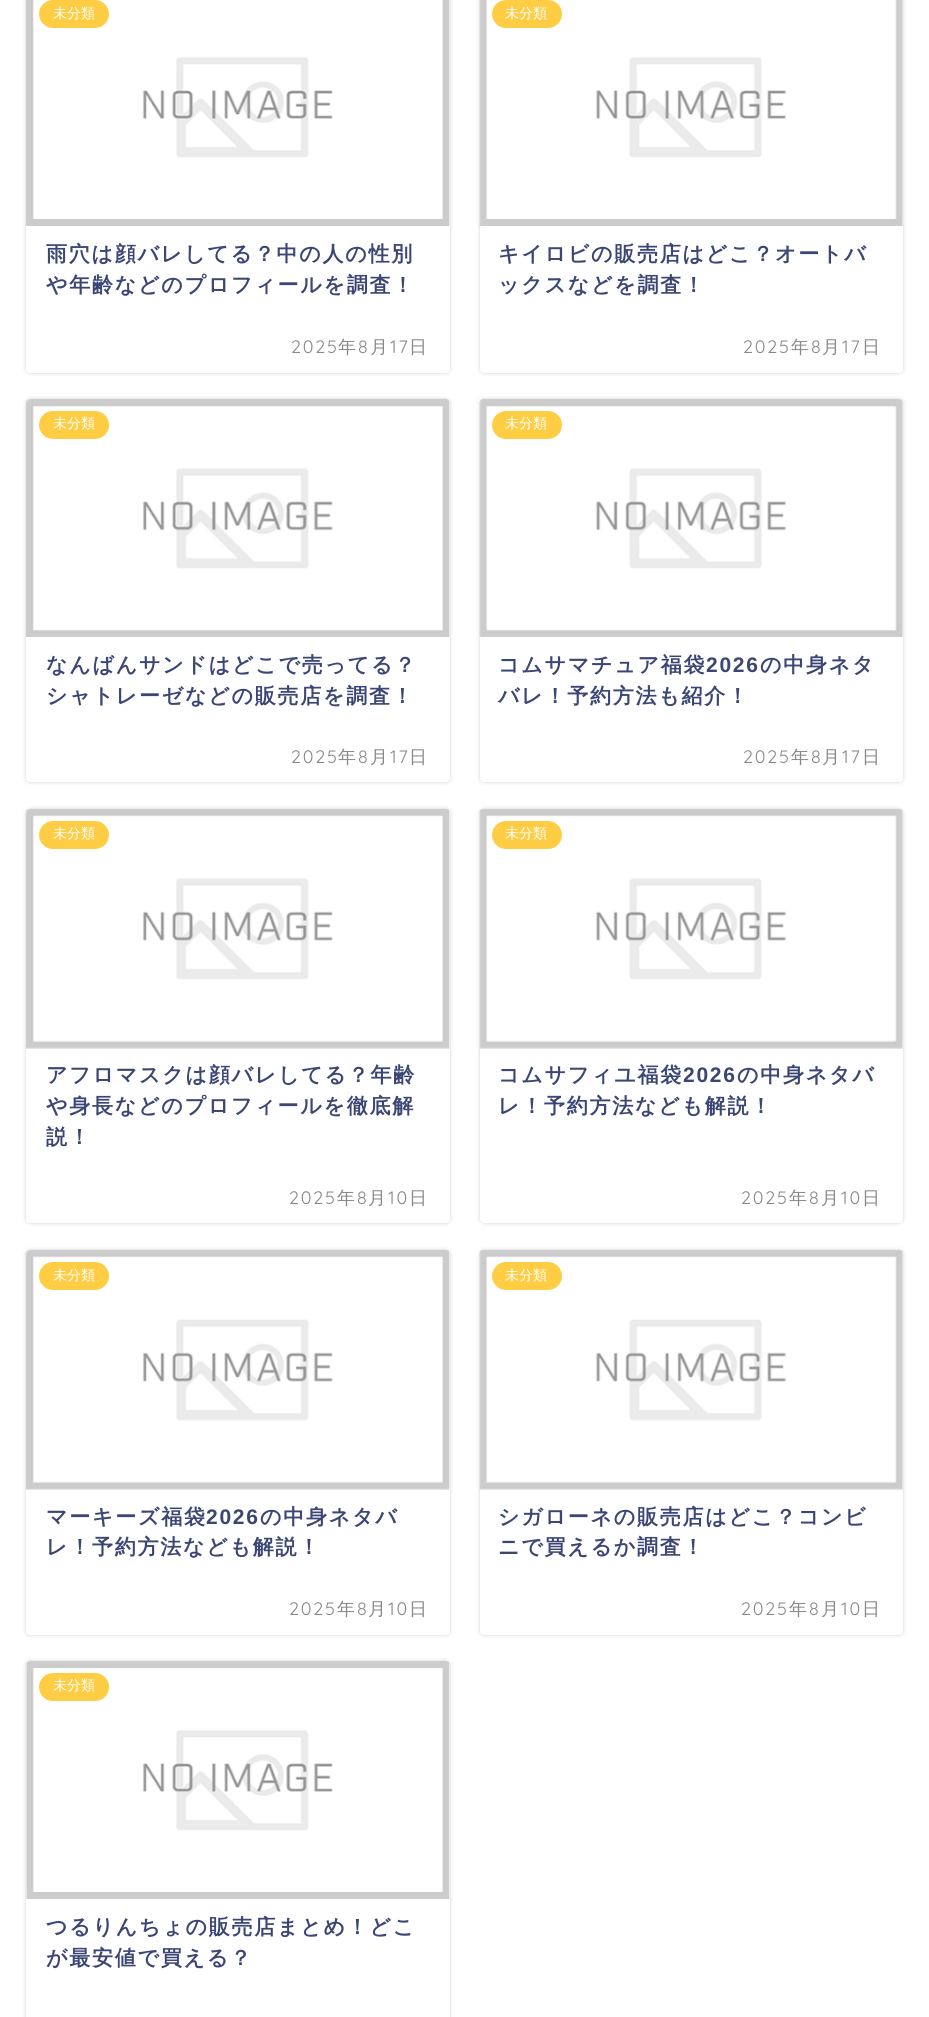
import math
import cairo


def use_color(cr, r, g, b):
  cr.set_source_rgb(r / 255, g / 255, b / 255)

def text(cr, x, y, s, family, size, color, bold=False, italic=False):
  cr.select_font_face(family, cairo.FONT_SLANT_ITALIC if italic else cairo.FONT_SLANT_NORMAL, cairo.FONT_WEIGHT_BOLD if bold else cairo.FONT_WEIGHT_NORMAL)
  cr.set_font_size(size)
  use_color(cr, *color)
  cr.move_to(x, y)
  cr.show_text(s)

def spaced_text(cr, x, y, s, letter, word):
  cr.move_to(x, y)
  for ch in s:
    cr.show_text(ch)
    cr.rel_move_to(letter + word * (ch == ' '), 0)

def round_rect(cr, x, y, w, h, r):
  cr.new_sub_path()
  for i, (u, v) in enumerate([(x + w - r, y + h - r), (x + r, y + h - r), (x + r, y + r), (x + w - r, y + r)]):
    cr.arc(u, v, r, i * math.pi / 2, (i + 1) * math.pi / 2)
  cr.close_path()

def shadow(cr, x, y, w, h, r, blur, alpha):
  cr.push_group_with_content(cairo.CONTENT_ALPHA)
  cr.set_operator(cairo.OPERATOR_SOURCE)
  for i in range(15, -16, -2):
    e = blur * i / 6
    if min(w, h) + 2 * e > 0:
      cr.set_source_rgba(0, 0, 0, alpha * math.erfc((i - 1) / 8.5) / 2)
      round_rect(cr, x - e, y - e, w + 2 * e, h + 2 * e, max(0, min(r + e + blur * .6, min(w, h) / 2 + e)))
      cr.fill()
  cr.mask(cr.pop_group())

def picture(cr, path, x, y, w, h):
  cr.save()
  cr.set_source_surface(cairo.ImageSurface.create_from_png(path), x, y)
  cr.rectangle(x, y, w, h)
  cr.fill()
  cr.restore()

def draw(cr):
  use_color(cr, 255, 255, 255)
  cr.paint()
  use_color(cr, 0, 0, 0)
  shadow(cr, 26, -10, 424, 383, 4, 2, 0.18)
  use_color(cr, 255, 255, 255)
  round_rect(cr, 26, -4, 424, 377, 4)
  cr.fill()
  picture(cr, "img_01.png", 26, 0, 424, 226)
  use_color(cr, 255, 205, 68)
  round_rect(cr, 39, 0, 70, 28, 14)
  cr.fill()
  use_color(cr, 0, 0, 0)
  shadow(cr, 480, -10, 423, 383, 4, 2, 0.18)
  use_color(cr, 255, 255, 255)
  round_rect(cr, 480, -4, 423, 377, 4)
  cr.fill()
  picture(cr, "img_02.png", 479, 0, 424, 226)
  use_color(cr, 255, 205, 68)
  round_rect(cr, 492, 0, 70, 28, 14)
  cr.fill()
  use_color(cr, 0, 0, 0)
  shadow(cr, 26, 399, 424, 383, 4, 2, 0.18)
  use_color(cr, 255, 255, 255)
  round_rect(cr, 26, 399, 424, 383, 4)
  cr.fill()
  picture(cr, "img_03.png", 26, 399, 424, 238)
  use_color(cr, 255, 205, 68)
  round_rect(cr, 39, 411, 70, 28, 14)
  cr.fill()
  use_color(cr, 0, 0, 0)
  shadow(cr, 480, 399, 423, 383, 4, 2, 0.18)
  use_color(cr, 255, 255, 255)
  round_rect(cr, 480, 399, 423, 383, 4)
  cr.fill()
  picture(cr, "img_04.png", 479, 399, 424, 238)
  use_color(cr, 255, 205, 68)
  round_rect(cr, 492, 411, 70, 28, 14)
  cr.fill()
  use_color(cr, 0, 0, 0)
  shadow(cr, 26, 809, 424, 414, 4, 2, 0.18)
  use_color(cr, 255, 255, 255)
  round_rect(cr, 26, 809, 424, 414, 4)
  cr.fill()
  picture(cr, "img_05.png", 26, 809, 424, 240)
  use_color(cr, 255, 205, 68)
  round_rect(cr, 39, 821, 70, 28, 14)
  cr.fill()
  use_color(cr, 0, 0, 0)
  shadow(cr, 480, 809, 423, 414, 4, 2, 0.18)
  use_color(cr, 255, 255, 255)
  round_rect(cr, 480, 809, 423, 414, 4)
  cr.fill()
  picture(cr, "img_06.png", 479, 809, 424, 240)
  use_color(cr, 255, 205, 68)
  round_rect(cr, 492, 821, 70, 28, 14)
  cr.fill()
  use_color(cr, 0, 0, 0)
  shadow(cr, 26, 1250, 424, 385, 4, 2, 0.18)
  use_color(cr, 255, 255, 255)
  round_rect(cr, 26, 1250, 424, 385, 4)
  cr.fill()
  picture(cr, "img_05.png", 26, 1250, 424, 240)
  use_color(cr, 255, 205, 68)
  round_rect(cr, 39, 1262, 70, 28, 14)
  cr.fill()
  use_color(cr, 0, 0, 0)
  shadow(cr, 480, 1250, 423, 385, 4, 2, 0.18)
  use_color(cr, 255, 255, 255)
  round_rect(cr, 480, 1250, 423, 385, 4)
  cr.fill()
  picture(cr, "img_06.png", 479, 1250, 424, 240)
  use_color(cr, 255, 205, 68)
  round_rect(cr, 492, 1262, 70, 28, 14)
  cr.fill()
  use_color(cr, 0, 0, 0)
  shadow(cr, 26, 1661, 424, 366, 4, 2, 0.18)
  use_color(cr, 255, 255, 255)
  round_rect(cr, 26, 1661, 424, 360, 4)
  cr.fill()
  picture(cr, "img_07.png", 26, 1661, 424, 238)
  use_color(cr, 255, 205, 68)
  round_rect(cr, 39, 1673, 70, 28, 14)
  cr.fill()
  text(cr, 53, 18, "未分類", "WenQuanYi Zen Hei Medium", 14, (255, 255, 255))
  cr.select_font_face("WenQuanYi Zen Hei", cairo.FONT_SLANT_NORMAL, cairo.FONT_WEIGHT_BOLD)
  cr.set_font_size(21)
  use_color(cr, 59, 70, 117)
  spaced_text(cr, 46, 261, "雨穴は顔バレしてる？中の人の性別", 1.75, 0)
  spaced_text(cr, 46, 292, "や年齢などのプロフィールを調査！", 1.75, 0)
  cr.select_font_face("Quicksand Light")
  cr.set_font_size(18)
  use_color(cr, 136, 136, 136)
  spaced_text(cr, 291, 353, "2025", 1.75, 0)
  cr.select_font_face("WenQuanYi Zen Hei Medium")
  spaced_text(cr, 338, 353, "年", 1.75, 0)
  cr.select_font_face("Quicksand Light")
  spaced_text(cr, 358, 353, "8", 1.75, 0)
  cr.select_font_face("WenQuanYi Zen Hei Medium")
  spaced_text(cr, 370, 353, "月", 1.75, 0)
  cr.select_font_face("Quicksand Light")
  spaced_text(cr, 390, 353, "17", 1.75, 0)
  cr.select_font_face("WenQuanYi Zen Hei Medium")
  spaced_text(cr, 409, 353, "日", 1.75, 0)
  text(cr, 505, 18, "未分類", "WenQuanYi Zen Hei Medium", 14, (255, 255, 255))
  cr.select_font_face("WenQuanYi Zen Hei", cairo.FONT_SLANT_NORMAL, cairo.FONT_WEIGHT_BOLD)
  cr.set_font_size(21)
  use_color(cr, 59, 70, 117)
  spaced_text(cr, 498, 261, "キイロビの販売店はどこ？オートバ", 1.75, 0)
  spaced_text(cr, 498, 292, "ックスなどを調査！", 1.75, 0)
  cr.select_font_face("Quicksand Light")
  cr.set_font_size(18)
  use_color(cr, 136, 136, 136)
  spaced_text(cr, 743, 353, "2025", 1.75, 0)
  cr.select_font_face("WenQuanYi Zen Hei Medium")
  spaced_text(cr, 791, 353, "年", 1.75, 0)
  cr.select_font_face("Quicksand Light")
  spaced_text(cr, 811, 353, "8", 1.75, 0)
  cr.select_font_face("WenQuanYi Zen Hei Medium")
  spaced_text(cr, 822, 353, "月", 1.75, 0)
  cr.select_font_face("Quicksand Light")
  spaced_text(cr, 842, 353, "17", 1.75, 0)
  cr.select_font_face("WenQuanYi Zen Hei Medium")
  spaced_text(cr, 862, 353, "日", 1.75, 0)
  text(cr, 53, 428, "未分類", "WenQuanYi Zen Hei Medium", 14, (255, 255, 255))
  cr.select_font_face("WenQuanYi Zen Hei", cairo.FONT_SLANT_NORMAL, cairo.FONT_WEIGHT_BOLD)
  cr.set_font_size(21)
  use_color(cr, 59, 70, 117)
  spaced_text(cr, 46, 672, "なんばんサンドはどこで売ってる？", 1.75, 0)
  spaced_text(cr, 46, 703, "シャトレーゼなどの販売店を調査！", 1.75, 0)
  cr.select_font_face("Quicksand Light")
  cr.set_font_size(18)
  use_color(cr, 136, 136, 136)
  spaced_text(cr, 291, 763, "2025", 1.75, 0)
  cr.select_font_face("WenQuanYi Zen Hei Medium")
  spaced_text(cr, 338, 763, "年", 1.75, 0)
  cr.select_font_face("Quicksand Light")
  spaced_text(cr, 358, 763, "8", 1.75, 0)
  cr.select_font_face("WenQuanYi Zen Hei Medium")
  spaced_text(cr, 370, 763, "月", 1.75, 0)
  cr.select_font_face("Quicksand Light")
  spaced_text(cr, 390, 763, "17", 1.75, 0)
  cr.select_font_face("WenQuanYi Zen Hei Medium")
  spaced_text(cr, 409, 763, "日", 1.75, 0)
  text(cr, 505, 428, "未分類", "WenQuanYi Zen Hei Medium", 14, (255, 255, 255))
  cr.select_font_face("WenQuanYi Zen Hei", cairo.FONT_SLANT_NORMAL, cairo.FONT_WEIGHT_BOLD)
  cr.set_font_size(21)
  use_color(cr, 59, 70, 117)
  spaced_text(cr, 498, 672, "コムサマチュア福袋", 1.75, 0)
  cr.select_font_face("Liberation Sans", cairo.FONT_SLANT_NORMAL, cairo.FONT_WEIGHT_BOLD)
  spaced_text(cr, 706, 672, "2026", 1.75, 0)
  cr.select_font_face("WenQuanYi Zen Hei", cairo.FONT_SLANT_NORMAL, cairo.FONT_WEIGHT_BOLD)
  spaced_text(cr, 760, 672, "の中身ネタ", 1.75, 0)
  spaced_text(cr, 498, 703, "バレ！予約方法も紹介！", 1.75, 0)
  cr.select_font_face("Quicksand Light")
  cr.set_font_size(18)
  use_color(cr, 136, 136, 136)
  spaced_text(cr, 743, 763, "2025", 1.75, 0)
  cr.select_font_face("WenQuanYi Zen Hei Medium")
  spaced_text(cr, 791, 763, "年", 1.75, 0)
  cr.select_font_face("Quicksand Light")
  spaced_text(cr, 811, 763, "8", 1.75, 0)
  cr.select_font_face("WenQuanYi Zen Hei Medium")
  spaced_text(cr, 822, 763, "月", 1.75, 0)
  cr.select_font_face("Quicksand Light")
  spaced_text(cr, 842, 763, "17", 1.75, 0)
  cr.select_font_face("WenQuanYi Zen Hei Medium")
  spaced_text(cr, 862, 763, "日", 1.75, 0)
  text(cr, 53, 838, "未分類", "WenQuanYi Zen Hei Medium", 14, (255, 255, 255))
  cr.select_font_face("WenQuanYi Zen Hei", cairo.FONT_SLANT_NORMAL, cairo.FONT_WEIGHT_BOLD)
  cr.set_font_size(21)
  use_color(cr, 59, 70, 117)
  spaced_text(cr, 46, 1082, "アフロマスクは顔バレしてる？年齢", 1.75, 0)
  spaced_text(cr, 46, 1113, "や身長などのプロフィールを徹底解", 1.75, 0)
  spaced_text(cr, 46, 1144, "説！", 1.75, 0)
  cr.select_font_face("Quicksand Light")
  cr.set_font_size(18)
  use_color(cr, 136, 136, 136)
  spaced_text(cr, 289, 1204, "2025", 1.75, 0)
  cr.select_font_face("WenQuanYi Zen Hei Medium")
  spaced_text(cr, 337, 1204, "年", 1.75, 0)
  cr.select_font_face("Quicksand Light")
  spaced_text(cr, 357, 1204, "8", 1.75, 0)
  cr.select_font_face("WenQuanYi Zen Hei Medium")
  spaced_text(cr, 368, 1204, "月", 1.75, 0)
  cr.select_font_face("Quicksand Light")
  spaced_text(cr, 388, 1204, "10", 1.75, 0)
  cr.select_font_face("WenQuanYi Zen Hei Medium")
  spaced_text(cr, 409, 1204, "日", 1.75, 0)
  text(cr, 505, 838, "未分類", "WenQuanYi Zen Hei Medium", 14, (255, 255, 255))
  cr.select_font_face("WenQuanYi Zen Hei", cairo.FONT_SLANT_NORMAL, cairo.FONT_WEIGHT_BOLD)
  cr.set_font_size(21)
  use_color(cr, 59, 70, 117)
  spaced_text(cr, 498, 1082, "コムサフィユ福袋", 1.75, 0)
  cr.select_font_face("Liberation Sans", cairo.FONT_SLANT_NORMAL, cairo.FONT_WEIGHT_BOLD)
  spaced_text(cr, 683, 1082, "2026", 1.75, 0)
  cr.select_font_face("WenQuanYi Zen Hei", cairo.FONT_SLANT_NORMAL, cairo.FONT_WEIGHT_BOLD)
  spaced_text(cr, 737, 1082, "の中身ネタバ", 1.75, 0)
  spaced_text(cr, 498, 1113, "レ！予約方法なども解説！", 1.75, 0)
  cr.select_font_face("Quicksand Light")
  cr.set_font_size(18)
  use_color(cr, 136, 136, 136)
  spaced_text(cr, 741, 1204, "2025", 1.75, 0)
  cr.select_font_face("WenQuanYi Zen Hei Medium")
  spaced_text(cr, 789, 1204, "年", 1.75, 0)
  cr.select_font_face("Quicksand Light")
  spaced_text(cr, 809, 1204, "8", 1.75, 0)
  cr.select_font_face("WenQuanYi Zen Hei Medium")
  spaced_text(cr, 821, 1204, "月", 1.75, 0)
  cr.select_font_face("Quicksand Light")
  spaced_text(cr, 841, 1204, "10", 1.75, 0)
  cr.select_font_face("WenQuanYi Zen Hei Medium")
  spaced_text(cr, 862, 1204, "日", 1.75, 0)
  text(cr, 53, 1280, "未分類", "WenQuanYi Zen Hei Medium", 14, (255, 255, 255))
  cr.select_font_face("WenQuanYi Zen Hei", cairo.FONT_SLANT_NORMAL, cairo.FONT_WEIGHT_BOLD)
  cr.set_font_size(21)
  use_color(cr, 59, 70, 117)
  spaced_text(cr, 46, 1524, "マーキーズ福袋", 1.75, 0)
  cr.select_font_face("Liberation Sans", cairo.FONT_SLANT_NORMAL, cairo.FONT_WEIGHT_BOLD)
  spaced_text(cr, 206, 1524, "2026", 1.75, 0)
  cr.select_font_face("WenQuanYi Zen Hei", cairo.FONT_SLANT_NORMAL, cairo.FONT_WEIGHT_BOLD)
  spaced_text(cr, 260, 1524, "の中身ネタバ", 1.75, 0)
  spaced_text(cr, 46, 1554, "レ！予約方法なども解説！", 1.75, 0)
  cr.select_font_face("Quicksand Light")
  cr.set_font_size(18)
  use_color(cr, 136, 136, 136)
  spaced_text(cr, 289, 1615, "2025", 1.75, 0)
  cr.select_font_face("WenQuanYi Zen Hei Medium")
  spaced_text(cr, 337, 1615, "年", 1.75, 0)
  cr.select_font_face("Quicksand Light")
  spaced_text(cr, 357, 1615, "8", 1.75, 0)
  cr.select_font_face("WenQuanYi Zen Hei Medium")
  spaced_text(cr, 368, 1615, "月", 1.75, 0)
  cr.select_font_face("Quicksand Light")
  spaced_text(cr, 388, 1615, "10", 1.75, 0)
  cr.select_font_face("WenQuanYi Zen Hei Medium")
  spaced_text(cr, 409, 1615, "日", 1.75, 0)
  text(cr, 505, 1280, "未分類", "WenQuanYi Zen Hei Medium", 14, (255, 255, 255))
  cr.select_font_face("WenQuanYi Zen Hei", cairo.FONT_SLANT_NORMAL, cairo.FONT_WEIGHT_BOLD)
  cr.set_font_size(21)
  use_color(cr, 59, 70, 117)
  spaced_text(cr, 498, 1524, "シガローネの販売店はどこ？コンビ", 1.75, 0)
  spaced_text(cr, 498, 1554, "ニで買えるか調査！", 1.75, 0)
  cr.select_font_face("Quicksand Light")
  cr.set_font_size(18)
  use_color(cr, 136, 136, 136)
  spaced_text(cr, 741, 1615, "2025", 1.75, 0)
  cr.select_font_face("WenQuanYi Zen Hei Medium")
  spaced_text(cr, 789, 1615, "年", 1.75, 0)
  cr.select_font_face("Quicksand Light")
  spaced_text(cr, 809, 1615, "8", 1.75, 0)
  cr.select_font_face("WenQuanYi Zen Hei Medium")
  spaced_text(cr, 821, 1615, "月", 1.75, 0)
  cr.select_font_face("Quicksand Light")
  spaced_text(cr, 841, 1615, "10", 1.75, 0)
  cr.select_font_face("WenQuanYi Zen Hei Medium")
  spaced_text(cr, 862, 1615, "日", 1.75, 0)
  text(cr, 53, 1690, "未分類", "WenQuanYi Zen Hei Medium", 14, (255, 255, 255))
  cr.select_font_face("WenQuanYi Zen Hei", cairo.FONT_SLANT_NORMAL, cairo.FONT_WEIGHT_BOLD)
  cr.set_font_size(21)
  use_color(cr, 59, 70, 117)
  spaced_text(cr, 46, 1934, "つるりんちょの販売店まとめ！どこ", 1.75, 0)
  spaced_text(cr, 46, 1965, "が最安値で買える？", 1.75, 0)


surface = cairo.ImageSurface(cairo.FORMAT_RGB24, 929, 2017)
cr = cairo.Context(surface)
options = cairo.FontOptions()
options.set_hint_metrics(cairo.HINT_METRICS_OFF)
options.set_hint_style(cairo.HINT_STYLE_NONE)
cr.set_font_options(options)
cr.set_miter_limit(4)
draw(cr)
surface.write_to_png("out.png")
